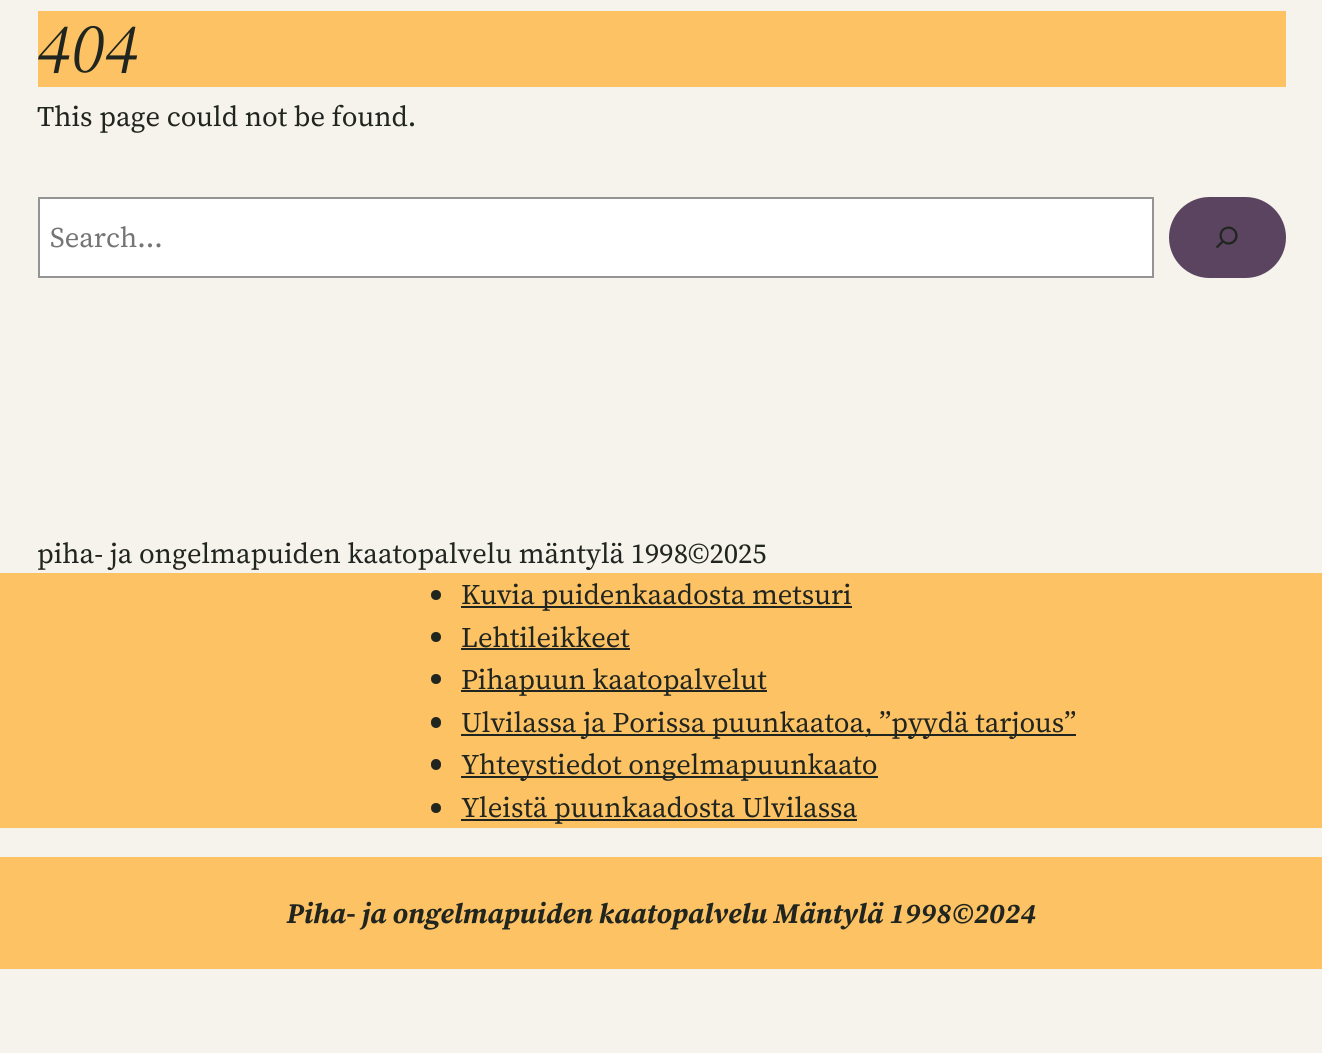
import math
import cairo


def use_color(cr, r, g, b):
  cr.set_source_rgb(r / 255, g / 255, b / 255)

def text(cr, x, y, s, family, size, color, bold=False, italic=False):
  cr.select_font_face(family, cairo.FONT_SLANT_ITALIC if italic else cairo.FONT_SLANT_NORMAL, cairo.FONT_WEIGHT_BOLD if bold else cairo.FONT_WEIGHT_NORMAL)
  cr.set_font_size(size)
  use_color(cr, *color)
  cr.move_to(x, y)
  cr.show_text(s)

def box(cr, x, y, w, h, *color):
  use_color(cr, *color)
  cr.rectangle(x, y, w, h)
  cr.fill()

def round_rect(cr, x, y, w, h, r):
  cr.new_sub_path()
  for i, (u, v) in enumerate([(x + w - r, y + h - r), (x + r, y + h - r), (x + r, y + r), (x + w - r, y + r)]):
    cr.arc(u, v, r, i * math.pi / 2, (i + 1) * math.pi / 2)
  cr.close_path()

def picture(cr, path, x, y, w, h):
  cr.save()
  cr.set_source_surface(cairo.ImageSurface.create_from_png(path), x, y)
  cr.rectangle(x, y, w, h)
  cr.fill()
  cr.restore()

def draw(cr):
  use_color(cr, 246, 242, 236)
  cr.paint()
  box(cr, 38, 11, 1248, 76, 252, 194, 99)
  use_color(cr, 255, 255, 255)
  cr.rectangle(39, 198, 1114, 79)
  cr.fill_preserve()
  use_color(cr, 148, 148, 148)
  cr.stroke()
  use_color(cr, 91, 68, 96)
  round_rect(cr, 1169, 197, 117, 81, 40.5)
  cr.fill()
  picture(cr, "img_01.png", 1215, 226, 23, 23)
  box(cr, 0, 573, 1322, 255, 252, 194, 99)
  use_color(cr, 33, 37, 31)
  cr.arc(436, 595, 5, 0, 2 * math.pi)
  cr.fill()
  box(cr, 461, 606, 391, 2, 33, 37, 31)
  cr.arc(436, 637, 5, 0, 2 * math.pi)
  cr.fill()
  box(cr, 461, 648, 169, 2, 33, 37, 31)
  cr.arc(436, 679, 5, 0, 2 * math.pi)
  cr.fill()
  box(cr, 461, 690, 306, 2, 33, 37, 31)
  round_rect(cr, 431, 717, 10, 11, 5)
  cr.fill()
  box(cr, 461, 734, 615, 2, 33, 37, 31)
  round_rect(cr, 431, 759, 10, 11, 5)
  cr.fill()
  box(cr, 461, 776, 417, 2, 33, 37, 31)
  cr.arc(436, 808, 5, 0, 2 * math.pi)
  cr.fill()
  box(cr, 461, 819, 396, 2, 33, 37, 31)
  box(cr, 0, 857, 1322, 112, 252, 194, 99)
  text(cr, 37, 72, "404", "Source Serif 4", 70, (33, 37, 31), italic=True)
  text(cr, 37, 126, "This page could not be found.", "Source Serif 4", 28.35, (33, 37, 31))
  text(cr, 50, 247, "Search...", "Source Serif 4", 28.35, (117, 117, 117))
  text(cr, 37, 563, "piha- ja ongelmapuiden kaatopalvelu mäntylä 1998©2025", "Source Serif 4", 28.35, (33, 37, 31))
  text(cr, 461, 604, "Kuvia puidenkaadosta metsuri", "Source Serif 4", 28.35, (33, 37, 31))
  text(cr, 461, 647, "Lehtileikkeet", "Source Serif 4", 28.35, (33, 37, 31))
  text(cr, 461, 689, "Pihapuun kaatopalvelut", "Source Serif 4", 28.35, (33, 37, 31))
  text(cr, 461, 732, "Ulvilassa ja Porissa puunkaatoa, ”pyydä tarjous”", "Source Serif 4", 28.35, (33, 37, 31))
  text(cr, 461, 774, "Yhteystiedot ongelmapuunkaato", "Source Serif 4", 28.35, (33, 37, 31))
  text(cr, 461, 817, "Yleistä puunkaadosta Ulvilassa", "Source Serif 4", 28.35, (33, 37, 31))
  text(cr, 287, 923, "Piha- ja ongelmapuiden kaatopalvelu Mäntylä 1998©2024", "Source Serif 4", 28.35, (33, 37, 31), bold=True, italic=True)


surface = cairo.ImageSurface(cairo.FORMAT_RGB24, 1322, 1053)
cr = cairo.Context(surface)
options = cairo.FontOptions()
options.set_hint_metrics(cairo.HINT_METRICS_OFF)
options.set_hint_style(cairo.HINT_STYLE_NONE)
cr.set_font_options(options)
cr.set_miter_limit(4)
draw(cr)
surface.write_to_png("out.png")
